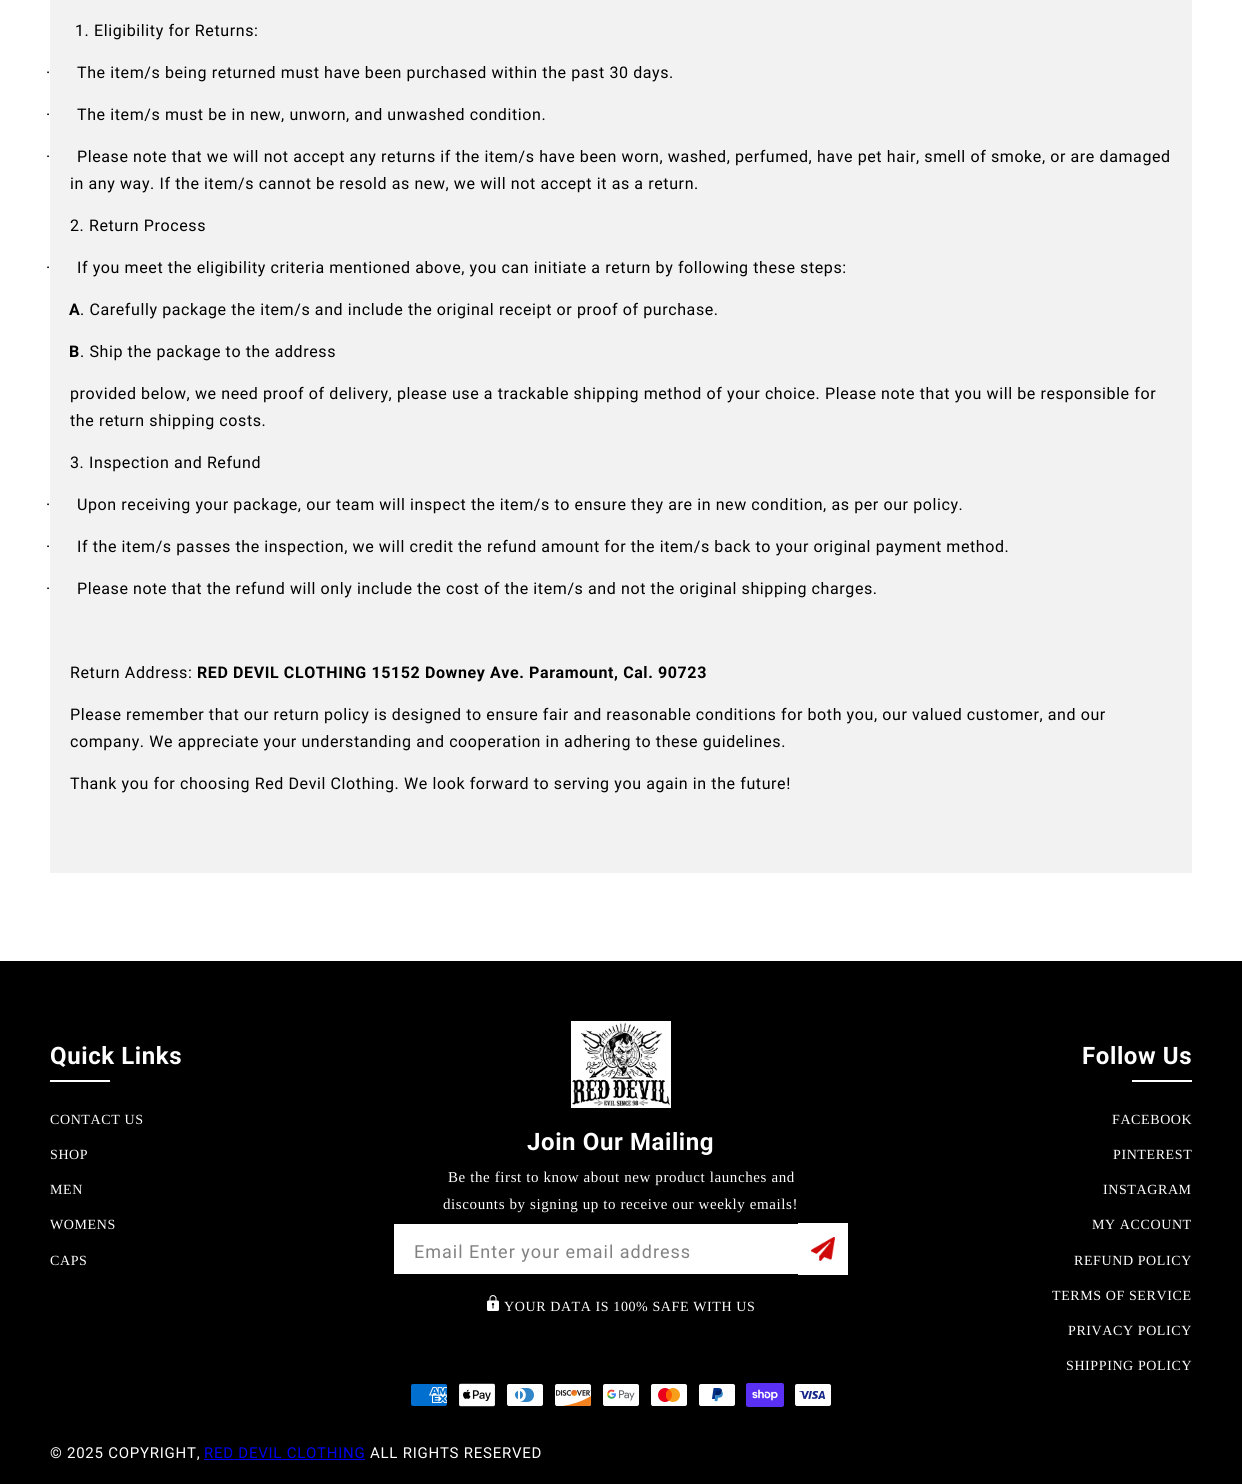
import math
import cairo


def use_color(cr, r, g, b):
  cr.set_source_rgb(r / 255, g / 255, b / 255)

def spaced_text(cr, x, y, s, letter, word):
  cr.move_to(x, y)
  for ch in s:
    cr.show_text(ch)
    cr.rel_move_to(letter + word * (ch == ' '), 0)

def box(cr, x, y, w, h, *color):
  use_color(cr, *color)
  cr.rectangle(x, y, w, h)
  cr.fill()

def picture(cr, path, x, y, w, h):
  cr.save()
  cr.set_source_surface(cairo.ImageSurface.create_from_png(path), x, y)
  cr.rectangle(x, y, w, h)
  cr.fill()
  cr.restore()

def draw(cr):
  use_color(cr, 255, 255, 255)
  cr.paint()
  box(cr, 50, 0, 1142, 873, 242, 242, 242)
  box(cr, 0, 961, 1242, 523, 0, 0, 0)
  box(cr, 50, 1080, 60, 2, 255, 255, 255)
  picture(cr, "img_01.png", 571, 1021, 100, 87)
  box(cr, 394, 1224, 404, 50, 255, 255, 255)
  box(cr, 798, 1223, 50, 52, 255, 255, 255)
  picture(cr, "img_02.png", 811, 1237, 24, 24)
  picture(cr, "img_03.png", 487, 1295, 12, 16)
  box(cr, 1132, 1080, 60, 2, 255, 255, 255)
  picture(cr, "img_04.png", 411, 1384, 36, 22)
  picture(cr, "img_05.png", 459, 1383, 36, 24)
  picture(cr, "img_06.png", 507, 1384, 36, 22)
  picture(cr, "img_07.png", 555, 1384, 37, 22)
  picture(cr, "img_08.png", 603, 1384, 36, 22)
  picture(cr, "img_09.png", 651, 1384, 36, 22)
  picture(cr, "img_10.png", 699, 1384, 36, 22)
  picture(cr, "img_11.png", 746, 1383, 38, 24)
  picture(cr, "img_12.png", 795, 1384, 36, 22)
  box(cr, 204, 1459, 161, 1, 0, 0, 238)
  cr.select_font_face("Roboto")
  cr.set_font_size(16)
  use_color(cr, 0, 0, 0)
  spaced_text(cr, 75, 36, "1. Eligibility for Returns:", 0.6, 0)
  spaced_text(cr, 46, 78, "·", 0.6, 0)
  spaced_text(cr, 77, 78, "The item/s being returned must have been purchased within the past 30 days.", 0.6, 0)
  spaced_text(cr, 46, 120, "·", 0.6, 0)
  spaced_text(cr, 77, 120, "The item/s must be in new, unworn, and unwashed condition.", 0.6, 0)
  spaced_text(cr, 46, 162, "·", 0.6, 0)
  spaced_text(cr, 77, 162, "Please note that we will not accept any returns if the item/s have been worn, washed, perfumed, have pet hair, smell of smoke, or are damaged", 0.6, 0)
  spaced_text(cr, 70, 189, "in any way. If the item/s cannot be resold as new, we will not accept it as a return.", 0.6, 0)
  spaced_text(cr, 70, 231, "2. Return Process", 0.6, 0)
  spaced_text(cr, 46, 273, "·", 0.6, 0)
  spaced_text(cr, 77, 273, "If you meet the eligibility criteria mentioned above, you can initiate a return by following these steps:", 0.6, 0)
  cr.select_font_face("Roboto", cairo.FONT_SLANT_NORMAL, cairo.FONT_WEIGHT_BOLD)
  spaced_text(cr, 69, 315, "A", 0.6, 0)
  cr.select_font_face("Roboto")
  spaced_text(cr, 80, 315, ". Carefully package the item/s and include the original receipt or proof of purchase.", 0.6, 0)
  cr.select_font_face("Roboto", cairo.FONT_SLANT_NORMAL, cairo.FONT_WEIGHT_BOLD)
  spaced_text(cr, 69, 357, "B", 0.6, 0)
  cr.select_font_face("Roboto")
  spaced_text(cr, 80, 357, ". Ship the package to the address", 0.6, 0)
  spaced_text(cr, 70, 399, "provided below, we need proof of delivery, please use a trackable shipping method of your choice. Please note that you will be responsible for", 0.6, 0)
  spaced_text(cr, 70, 426, "the return shipping costs.", 0.6, 0)
  spaced_text(cr, 70, 468, "3. Inspection and Refund", 0.6, 0)
  spaced_text(cr, 46, 510, "·", 0.6, 0)
  spaced_text(cr, 77, 510, "Upon receiving your package, our team will inspect the item/s to ensure they are in new condition, as per our policy.", 0.6, 0)
  spaced_text(cr, 46, 552, "·", 0.6, 0)
  spaced_text(cr, 77, 552, "If the item/s passes the inspection, we will credit the refund amount for the item/s back to your original payment method.", 0.6, 0)
  spaced_text(cr, 46, 594, "·", 0.6, 0)
  spaced_text(cr, 77, 594, "Please note that the refund will only include the cost of the item/s and not the original shipping charges.", 0.6, 0)
  spaced_text(cr, 70, 678, "Return Address:", 0.6, 0)
  cr.select_font_face("Roboto", cairo.FONT_SLANT_NORMAL, cairo.FONT_WEIGHT_BOLD)
  spaced_text(cr, 197, 678, "RED DEVIL CLOTHING 15152 Downey Ave. Paramount, Cal. 90723", 0.6, 0)
  cr.select_font_face("Roboto")
  spaced_text(cr, 70, 720, "Please remember that our return policy is designed to ensure fair and reasonable conditions for both you, our valued customer, and our", 0.6, 0)
  spaced_text(cr, 70, 747, "company. We appreciate your understanding and cooperation in adhering to these guidelines.", 0.6, 0)
  spaced_text(cr, 70, 789, "Thank you for choosing Red Devil Clothing. We look forward to serving you again in the future!", 0.6, 0)
  cr.select_font_face("Roboto", cairo.FONT_SLANT_NORMAL, cairo.FONT_WEIGHT_BOLD)
  cr.set_font_size(24)
  use_color(cr, 255, 255, 255)
  spaced_text(cr, 50, 1064, "Quick Links", 0.6, 0)
  cr.select_font_face("Liberation Serif")
  cr.set_font_size(14)
  spaced_text(cr, 50, 1124, "CONTACT US", 0.6, 0)
  spaced_text(cr, 50, 1159, "SHOP", 0.6, 0)
  spaced_text(cr, 50, 1194, "MEN", 0.6, 0)
  spaced_text(cr, 50, 1229, "WOMENS", 0.6, 0)
  spaced_text(cr, 50, 1265, "CAPS", 0.6, 0)
  cr.select_font_face("Roboto", cairo.FONT_SLANT_NORMAL, cairo.FONT_WEIGHT_BOLD)
  cr.set_font_size(24)
  spaced_text(cr, 527, 1150, "Join Our Mailing", 0.6, 0)
  cr.select_font_face("Liberation Serif")
  cr.set_font_size(15)
  spaced_text(cr, 448, 1182, "Be the first to know about new product launches and", 0.6, 0)
  spaced_text(cr, 443, 1209, "discounts by signing up to receive our weekly emails!", 0.6, 0)
  cr.select_font_face("Roboto")
  cr.set_font_size(18)
  use_color(cr, 130, 130, 130)
  spaced_text(cr, 414, 1258, "Email Enter your email address", 1, 0)
  cr.select_font_face("Liberation Serif")
  cr.set_font_size(14)
  use_color(cr, 255, 255, 255)
  spaced_text(cr, 504, 1311, "YOUR DATA IS 100% SAFE WITH US", 0.6, 0)
  cr.select_font_face("Roboto", cairo.FONT_SLANT_NORMAL, cairo.FONT_WEIGHT_BOLD)
  cr.set_font_size(24)
  spaced_text(cr, 1082, 1064, "Follow Us", 0.6, 0)
  cr.select_font_face("Liberation Serif")
  cr.set_font_size(14)
  spaced_text(cr, 1112, 1124, "FACEBOOK", 0.6, 0)
  spaced_text(cr, 1113, 1159, "PINTEREST", 0.6, 0)
  spaced_text(cr, 1103, 1194, "INSTAGRAM", 0.6, 0)
  spaced_text(cr, 1092, 1229, "MY ACCOUNT", 0.6, 0)
  spaced_text(cr, 1074, 1265, "REFUND POLICY", 0.6, 0)
  spaced_text(cr, 1052, 1300, "TERMS OF SERVICE", 0.6, 0)
  spaced_text(cr, 1068, 1335, "PRIVACY POLICY", 0.6, 0)
  spaced_text(cr, 1066, 1370, "SHIPPING POLICY", 0.6, 0)
  cr.select_font_face("Roboto")
  cr.set_font_size(15)
  spaced_text(cr, 50, 1458, "© 2025 COPYRIGHT,", 0.75, 0)
  use_color(cr, 0, 0, 238)
  spaced_text(cr, 204, 1458, "RED DEVIL CLOTHING", 0.75, 0)
  use_color(cr, 255, 255, 255)
  spaced_text(cr, 370, 1458, "ALL RIGHTS RESERVED", 0.75, 0)


surface = cairo.ImageSurface(cairo.FORMAT_RGB24, 1242, 1484)
cr = cairo.Context(surface)
options = cairo.FontOptions()
options.set_hint_metrics(cairo.HINT_METRICS_OFF)
options.set_hint_style(cairo.HINT_STYLE_NONE)
cr.set_font_options(options)
cr.set_miter_limit(4)
draw(cr)
surface.write_to_png("out.png")
